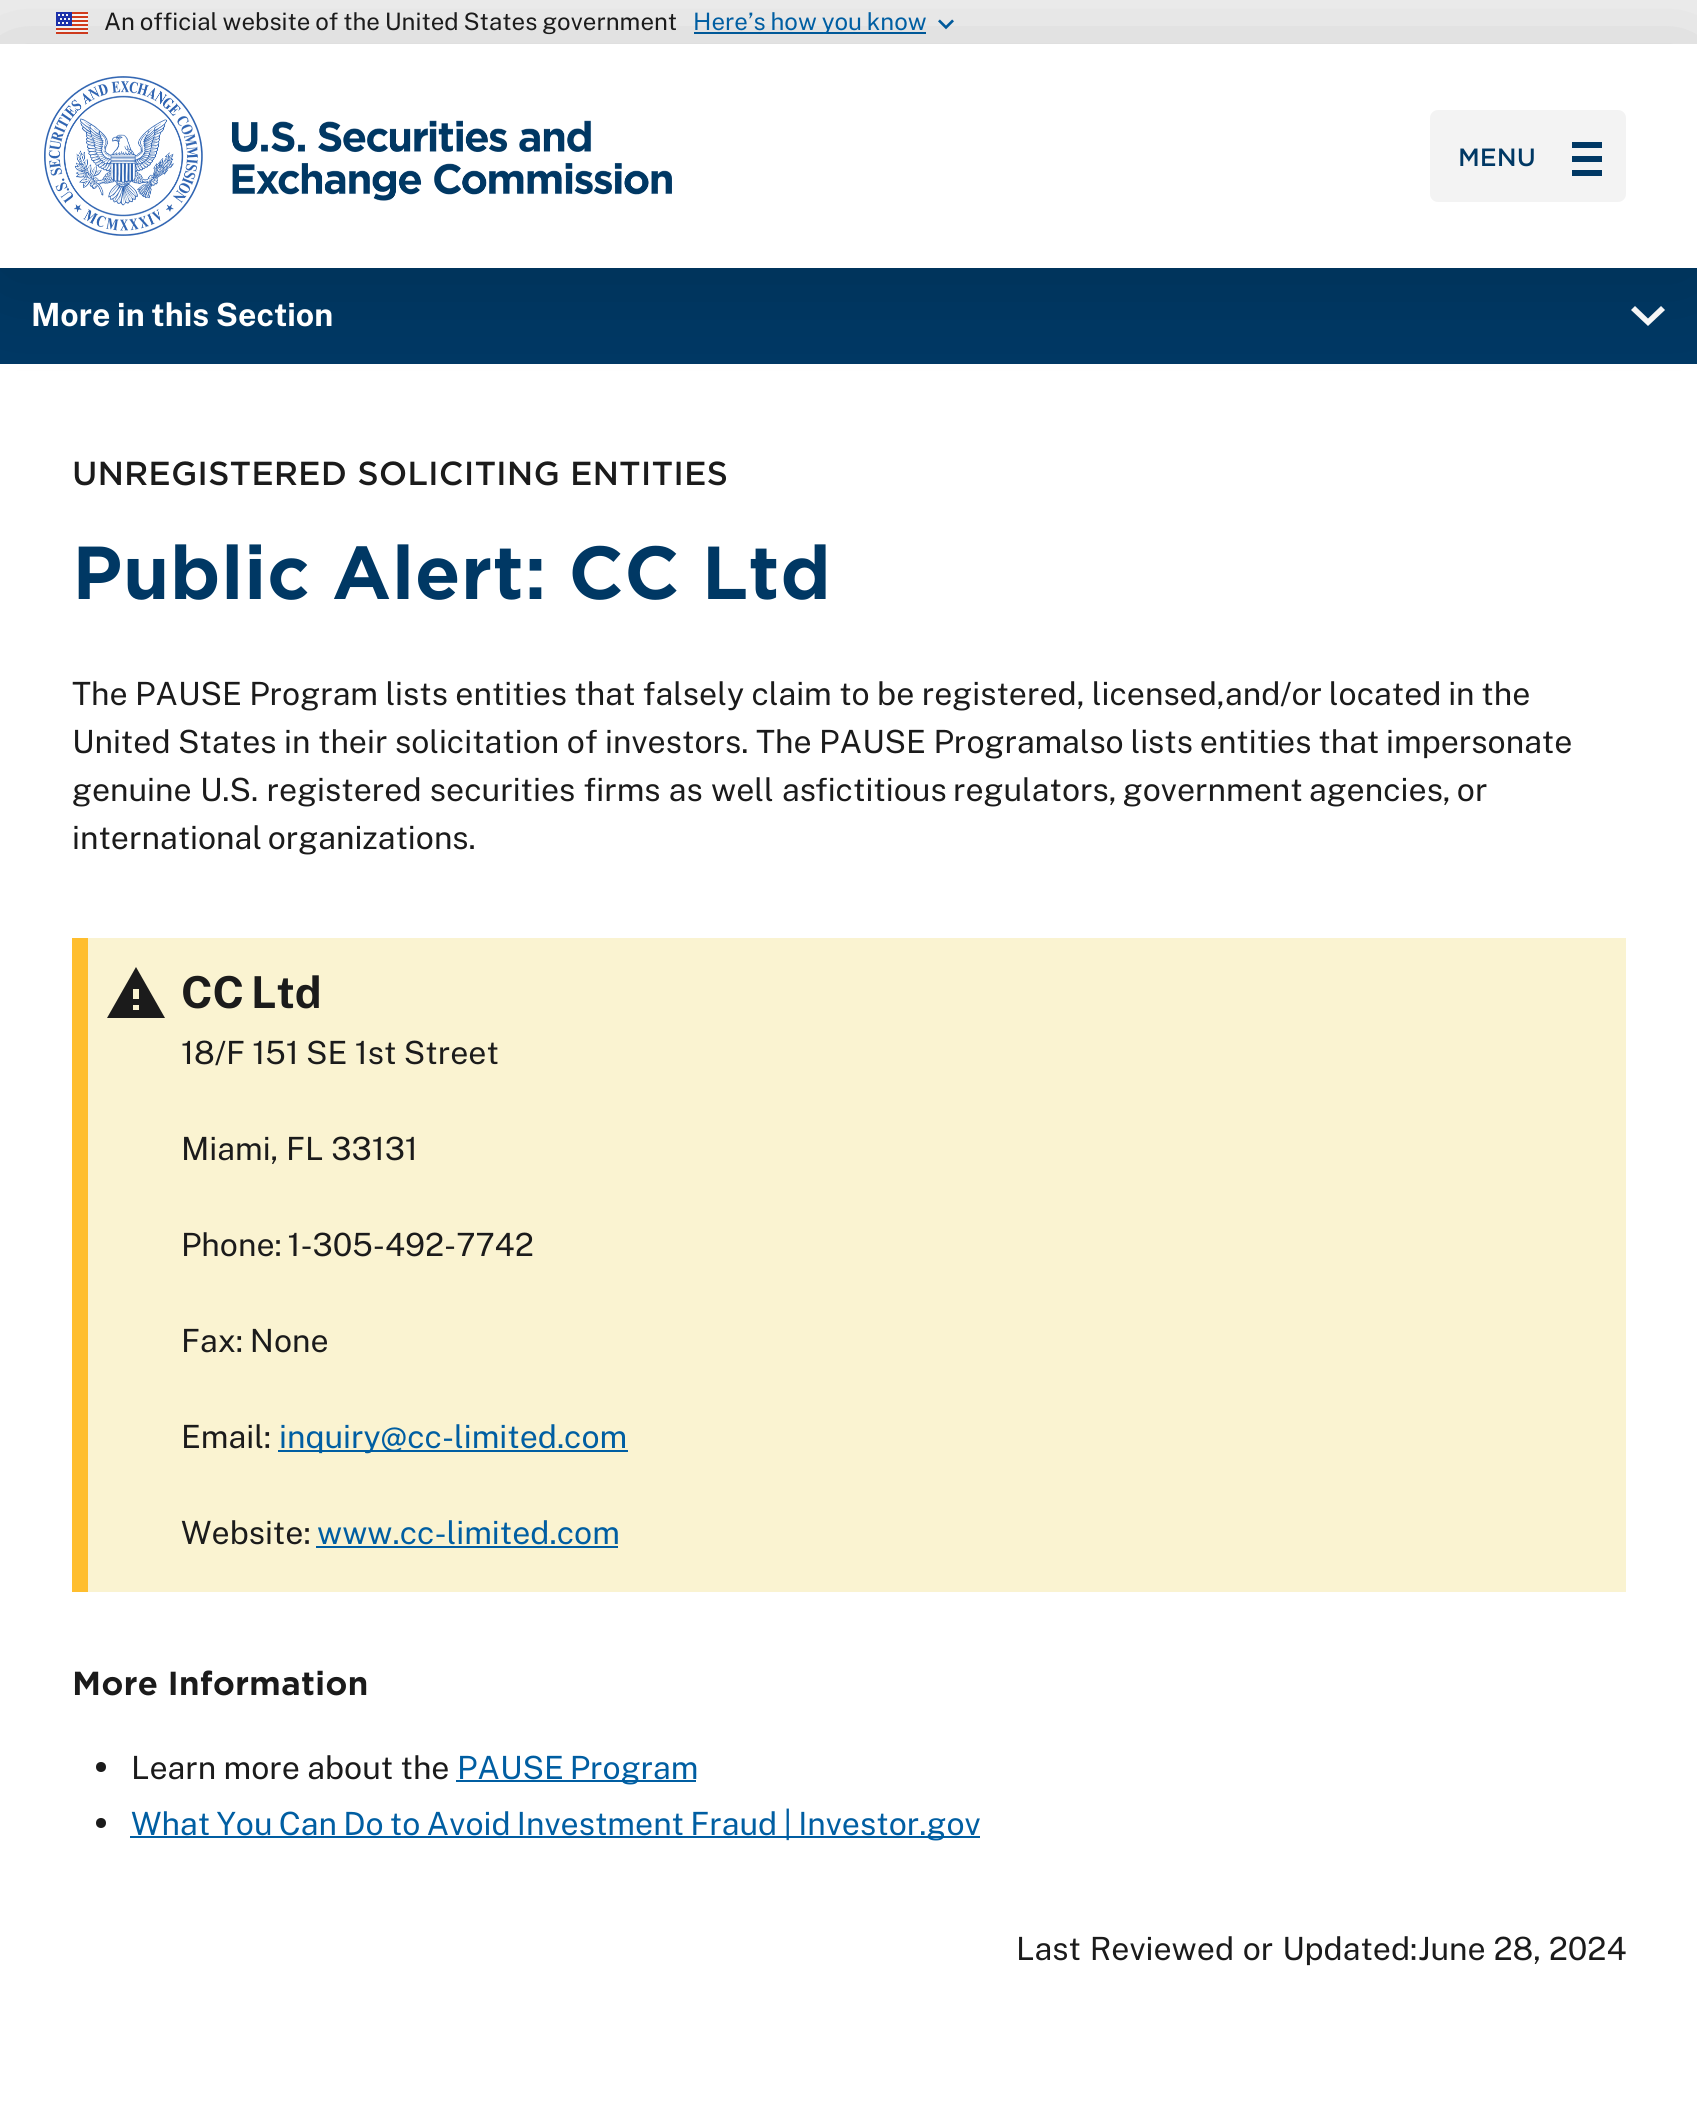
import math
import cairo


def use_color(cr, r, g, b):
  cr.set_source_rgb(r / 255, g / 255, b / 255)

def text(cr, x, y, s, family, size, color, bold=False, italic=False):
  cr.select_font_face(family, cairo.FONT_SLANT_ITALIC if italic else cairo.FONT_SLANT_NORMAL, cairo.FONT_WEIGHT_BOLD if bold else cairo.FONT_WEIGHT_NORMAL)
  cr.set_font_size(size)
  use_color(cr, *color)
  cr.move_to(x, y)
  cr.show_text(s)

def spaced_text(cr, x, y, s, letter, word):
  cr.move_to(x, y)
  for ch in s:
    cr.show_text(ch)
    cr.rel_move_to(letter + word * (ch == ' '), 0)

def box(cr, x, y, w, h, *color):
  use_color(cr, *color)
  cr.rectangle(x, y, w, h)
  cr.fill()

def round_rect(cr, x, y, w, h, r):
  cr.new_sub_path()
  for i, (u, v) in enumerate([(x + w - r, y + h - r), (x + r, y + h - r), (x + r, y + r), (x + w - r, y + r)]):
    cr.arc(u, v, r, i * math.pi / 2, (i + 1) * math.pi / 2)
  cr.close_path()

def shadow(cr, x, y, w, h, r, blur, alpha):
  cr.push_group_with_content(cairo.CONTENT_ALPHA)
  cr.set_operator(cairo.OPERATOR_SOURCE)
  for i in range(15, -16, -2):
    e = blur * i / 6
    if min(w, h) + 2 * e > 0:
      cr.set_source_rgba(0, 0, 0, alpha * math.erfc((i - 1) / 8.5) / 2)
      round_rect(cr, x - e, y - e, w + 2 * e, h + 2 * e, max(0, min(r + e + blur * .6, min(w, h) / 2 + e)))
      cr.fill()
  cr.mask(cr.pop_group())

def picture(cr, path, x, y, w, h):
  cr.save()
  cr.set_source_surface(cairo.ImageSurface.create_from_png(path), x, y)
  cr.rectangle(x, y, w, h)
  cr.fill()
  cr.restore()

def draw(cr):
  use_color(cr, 240, 240, 240)
  cr.paint()
  picture(cr, "img_01.png", 56, 12, 32, 22)
  box(cr, 694, 32, 232, 2, 0, 94, 162)
  picture(cr, "img_02.png", 938, 19, 16, 11)
  box(cr, 0, 364, 1697, 1752, 255, 255, 255)
  box(cr, 0, 268, 1697, 96, 0, 56, 100)
  use_color(cr, 255, 255, 255)
  cr.new_path()
  cr.move_to(1661, 306)
  cr.line_to(1648, 318.5)
  cr.line_to(1635, 306)
  cr.line_to(1631, 310)
  cr.line_to(1648, 326)
  cr.line_to(1665, 310)
  cr.close_path()
  cr.fill()
  use_color(cr, 0, 0, 0)
  shadow(cr, 0, 52, 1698, 224, 0, 52, 0.16)
  box(cr, 0, 44, 1697, 224, 255, 255, 255)
  picture(cr, "img_03.png", 44, 76, 628, 160)
  use_color(cr, 243, 243, 243)
  round_rect(cr, 1430, 110, 196, 92, 8)
  cr.fill()
  box(cr, 1572, 156, 30, 6, 0, 56, 100)
  box(cr, 1572, 142, 30, 6, 0, 56, 100)
  box(cr, 1572, 170, 30, 6, 0, 56, 100)
  box(cr, 88, 938, 1538, 654, 250, 243, 209)
  box(cr, 72, 938, 16, 654, 255, 190, 46)
  use_color(cr, 27, 27, 27)
  cr.new_path()
  cr.move_to(107, 1018)
  cr.line_to(165, 1018)
  cr.line_to(136, 967)
  cr.close_path()
  cr.move_to(139, 1010)
  cr.line_to(133, 1010)
  cr.line_to(133, 1005)
  cr.line_to(139, 1005)
  cr.close_path()
  cr.move_to(139, 999)
  cr.line_to(133, 999)
  cr.line_to(133, 989)
  cr.line_to(139, 989)
  cr.close_path()
  cr.fill()
  box(cr, 278, 1450, 350, 2, 0, 94, 162)
  box(cr, 316, 1546, 302, 2, 0, 94, 162)
  use_color(cr, 27, 27, 27)
  cr.arc(101, 1767, 5, 0, 2 * math.pi)
  cr.fill()
  box(cr, 456, 1780, 240, 2, 0, 94, 162)
  use_color(cr, 27, 27, 27)
  cr.arc(101, 1823, 5, 0, 2 * math.pi)
  cr.fill()
  box(cr, 130, 1836, 850, 2, 0, 94, 162)
  cr.select_font_face("Public Sans")
  cr.set_font_size(24)
  use_color(cr, 27, 27, 27)
  spaced_text(cr, 104, 30, "An official website of the United States government", 0, -1)
  use_color(cr, 0, 94, 162)
  spaced_text(cr, 693, 30, "Here’s how you know", 0, -1)
  text(cr, 1458, 166, "MENU", "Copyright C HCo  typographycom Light", 24, (0, 56, 100))
  cr.select_font_face("Public Sans", cairo.FONT_SLANT_NORMAL, cairo.FONT_WEIGHT_BOLD)
  cr.set_font_size(32)
  use_color(cr, 255, 255, 255)
  spaced_text(cr, 31, 326, "More in this Section", 0, -0.5)
  text(cr, 72, 485, "UNREGISTERED SOLICITING ENTITIES", "Copyright C HCo  typographycom Light", 32, (27, 27, 27))
  cr.select_font_face("Copyright C HCo  typographycom")
  cr.set_font_size(72)
  use_color(cr, 0, 56, 100)
  spaced_text(cr, 72, 599, "Public Alert: CC Ltd", 0, -1.5)
  cr.select_font_face("Public Sans")
  cr.set_font_size(32)
  use_color(cr, 27, 27, 27)
  spaced_text(cr, 72, 705, "The PAUSE Program lists entities that falsely claim to be registered, licensed,", 0, -0.4)
  spaced_text(cr, 1225, 705, "and/or located in the", 0, -1)
  spaced_text(cr, 72, 753, "United States in their solicitation of investors. The PAUSE Program", 0, -0.25)
  spaced_text(cr, 1062, 753, "also lists entities that impersonate", 0, -1)
  spaced_text(cr, 72, 801, "genuine U.S. registered securities firms as well as", 0, 0.5)
  spaced_text(cr, 815, 801, "fictitious regulators, government agencies, or", 0, -1.5)
  spaced_text(cr, 72, 849, "international organizations.", 0, -2)
  cr.select_font_face("Public Sans", cairo.FONT_SLANT_NORMAL, cairo.FONT_WEIGHT_BOLD)
  cr.set_font_size(44)
  spaced_text(cr, 181, 1008, "CC Ltd", 0, -3)
  cr.select_font_face("Public Sans")
  cr.set_font_size(32)
  spaced_text(cr, 181, 1064, "18/F 151 SE 1st Street", 0, -0.5)
  text(cr, 181, 1160, "Miami, FL 33131", "Public Sans", 32, (27, 27, 27))
  spaced_text(cr, 181, 1256, "Phone: 1-305-492-7742", 0, -2)
  spaced_text(cr, 181, 1352, "Fax: None", 0, -1)
  text(cr, 181, 1448, "Email:", "Public Sans", 32, (27, 27, 27))
  text(cr, 279, 1448, "inquiry@cc-limited.com", "Public Sans", 32, (0, 94, 162))
  text(cr, 181, 1544, "Website:", "Public Sans", 32, (27, 27, 27))
  text(cr, 317, 1544, "www.cc-limited.com", "Public Sans", 32, (0, 94, 162))
  cr.select_font_face("Copyright C HCo  typographycom")
  use_color(cr, 27, 27, 27)
  spaced_text(cr, 72, 1695, "More Information", 0, -1)
  cr.select_font_face("Public Sans")
  spaced_text(cr, 131, 1779, "Learn more about the", 0, -0.5)
  use_color(cr, 0, 94, 162)
  spaced_text(cr, 457, 1779, "PAUSE Program", 0, -2)
  spaced_text(cr, 131, 1835, "What You Can Do to Avoid Investment Fraud | Investor.gov", 0, -1.5)
  use_color(cr, 27, 27, 27)
  spaced_text(cr, 1016, 1960, "Last Reviewed or Updated:", 0, 1)
  text(cr, 1418, 1960, "June 28, 2024", "Public Sans", 32, (27, 27, 27))


surface = cairo.ImageSurface(cairo.FORMAT_RGB24, 1697, 2116)
cr = cairo.Context(surface)
options = cairo.FontOptions()
options.set_hint_metrics(cairo.HINT_METRICS_OFF)
options.set_hint_style(cairo.HINT_STYLE_NONE)
cr.set_font_options(options)
cr.set_miter_limit(4)
draw(cr)
surface.write_to_png("out.png")
